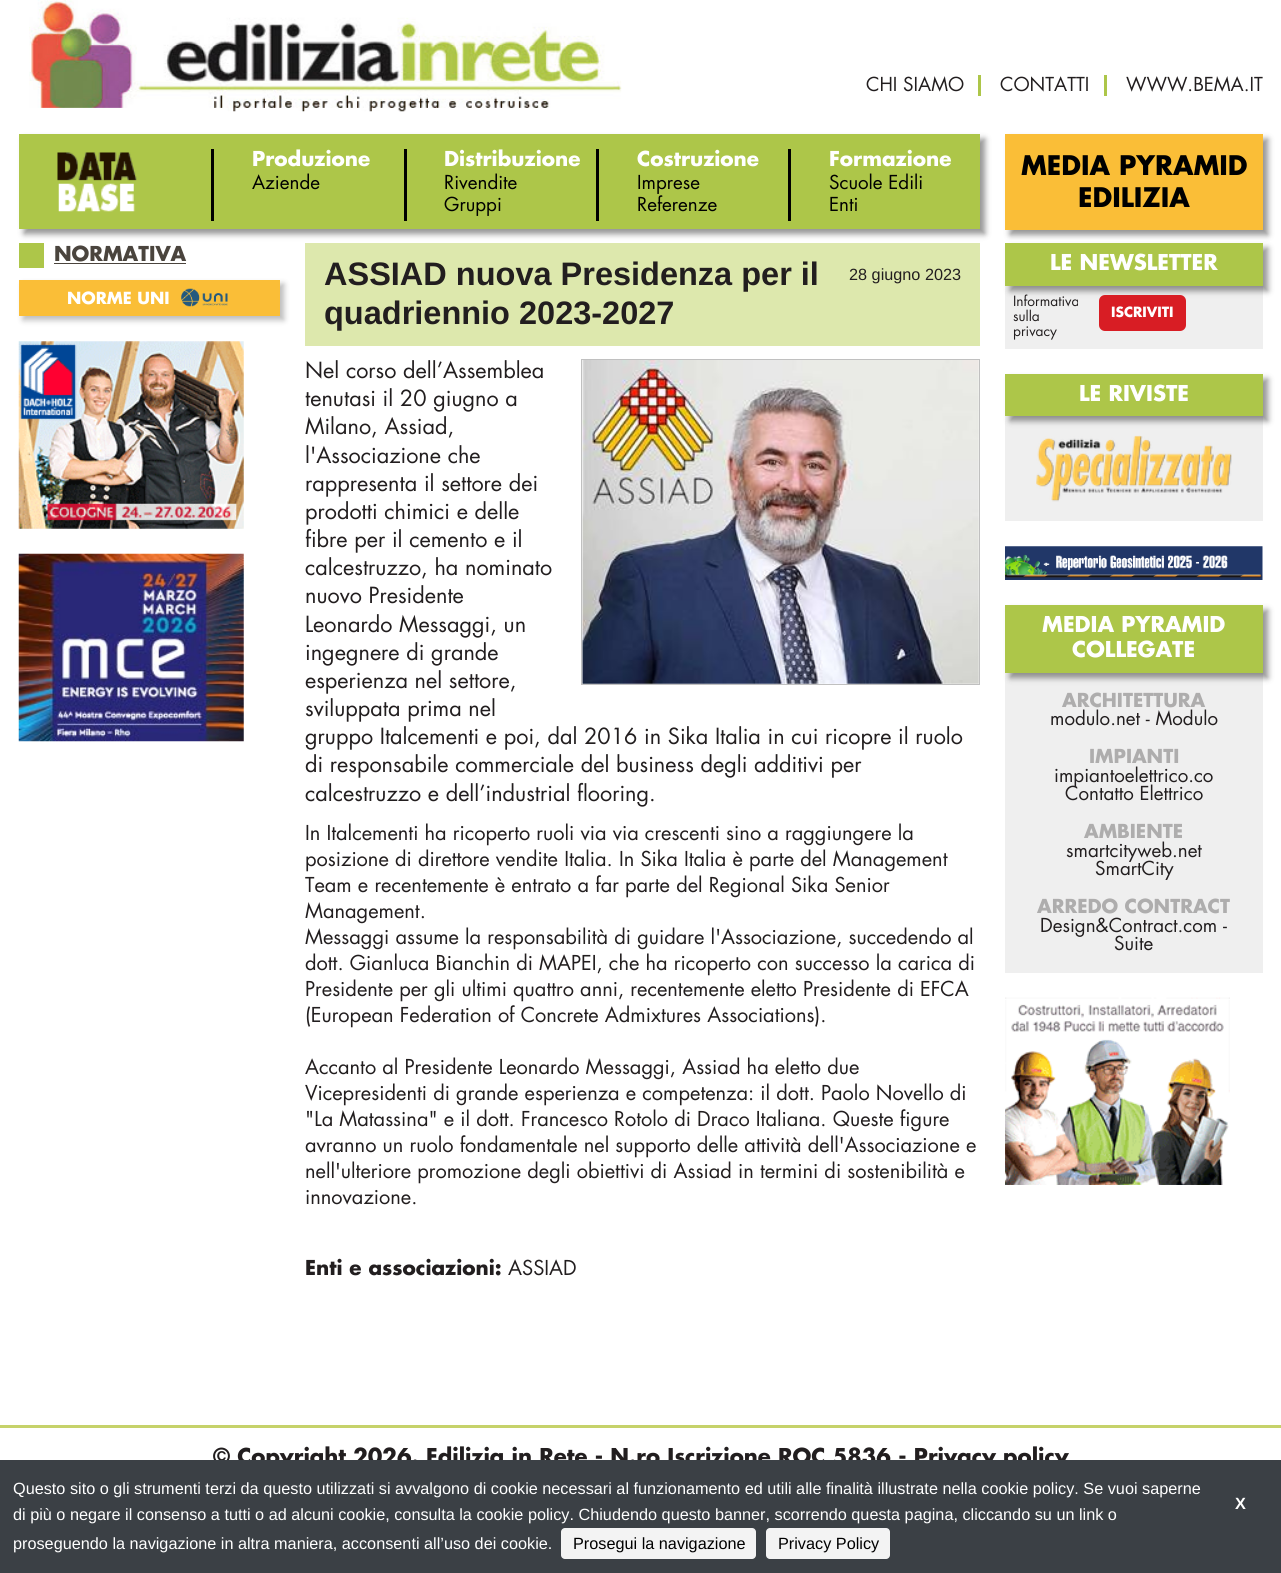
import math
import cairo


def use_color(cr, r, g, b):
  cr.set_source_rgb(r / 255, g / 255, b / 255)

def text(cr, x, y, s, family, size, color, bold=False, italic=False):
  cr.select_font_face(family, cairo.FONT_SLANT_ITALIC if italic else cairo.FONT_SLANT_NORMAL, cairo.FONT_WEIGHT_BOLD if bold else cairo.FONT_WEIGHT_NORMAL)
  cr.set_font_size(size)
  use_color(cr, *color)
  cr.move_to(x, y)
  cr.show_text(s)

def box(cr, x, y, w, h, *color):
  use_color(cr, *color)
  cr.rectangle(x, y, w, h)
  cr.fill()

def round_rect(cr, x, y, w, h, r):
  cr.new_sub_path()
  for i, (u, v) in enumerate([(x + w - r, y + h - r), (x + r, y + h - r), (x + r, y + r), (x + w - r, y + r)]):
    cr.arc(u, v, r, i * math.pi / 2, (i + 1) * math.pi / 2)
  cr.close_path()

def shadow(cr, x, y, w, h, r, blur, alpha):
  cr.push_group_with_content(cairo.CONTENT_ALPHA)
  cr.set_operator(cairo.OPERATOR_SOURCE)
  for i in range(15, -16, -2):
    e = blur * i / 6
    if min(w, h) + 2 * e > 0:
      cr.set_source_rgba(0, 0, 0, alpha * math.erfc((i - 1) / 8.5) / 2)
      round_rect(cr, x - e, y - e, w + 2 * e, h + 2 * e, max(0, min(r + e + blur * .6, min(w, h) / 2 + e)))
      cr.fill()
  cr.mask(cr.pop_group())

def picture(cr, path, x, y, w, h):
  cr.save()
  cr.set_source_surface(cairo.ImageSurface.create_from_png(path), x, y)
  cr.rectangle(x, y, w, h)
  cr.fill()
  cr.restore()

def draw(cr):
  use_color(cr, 255, 255, 255)
  cr.paint()
  picture(cr, "img_01.png", 29, 0, 593, 112)
  box(cr, 978, 75, 3, 21, 173, 198, 73)
  box(cr, 1104, 75, 3, 21, 173, 198, 73)
  use_color(cr, 50, 50, 50)
  shadow(cr, 24, 139, 961, 95, 0, 3, 0.52)
  box(cr, 19, 134, 961, 95, 173, 198, 73)
  picture(cr, "img_02.png", 57, 152, 80, 60)
  box(cr, 211, 149, 3, 72, 0, 0, 0)
  box(cr, 404, 149, 3, 72, 0, 0, 0)
  box(cr, 596, 149, 3, 72, 0, 0, 0)
  box(cr, 788, 149, 3, 72, 0, 0, 0)
  use_color(cr, 50, 50, 50)
  shadow(cr, 1010, 139, 258, 96, 0, 3, 0.52)
  box(cr, 1005, 134, 258, 96, 250, 190, 55)
  box(cr, 19, 243, 25, 25, 173, 198, 73)
  box(cr, 54, 263, 132, 1, 74, 68, 61)
  use_color(cr, 50, 50, 50)
  shadow(cr, 23, 284, 261, 36, 0, 3, 0.33)
  box(cr, 19, 280, 261, 36, 250, 190, 55)
  picture(cr, "img_03.png", 181, 288, 47, 19)
  picture(cr, "img_04.png", 18, 341, 226, 188)
  picture(cr, "img_05.png", 18, 553, 226, 189)
  box(cr, 305, 243, 675, 103, 221, 232, 173)
  cr.rectangle(581.5, 359.5, 398, 325)
  use_color(cr, 192, 192, 192)
  cr.set_line_width(1)
  cr.stroke()
  picture(cr, "img_06.png", 582, 360, 397, 324)
  box(cr, 1005, 286, 258, 63, 239, 239, 239)
  use_color(cr, 50, 50, 50)
  shadow(cr, 1010, 248, 258, 43, 0, 3, 0.52)
  box(cr, 1005, 243, 258, 43, 173, 198, 73)
  use_color(cr, 216, 29, 36)
  round_rect(cr, 1099, 295, 87, 36, 6)
  cr.fill()
  box(cr, 1005, 416, 258, 105, 239, 239, 239)
  use_color(cr, 50, 50, 50)
  shadow(cr, 1010, 379, 258, 42, 0, 3, 0.52)
  box(cr, 1005, 374, 258, 42, 173, 198, 73)
  picture(cr, "img_07.png", 1036, 435, 196, 67)
  picture(cr, "img_08.png", 1005, 546, 258, 34)
  box(cr, 1005, 673, 258, 300, 239, 239, 239)
  use_color(cr, 50, 50, 50)
  shadow(cr, 1010, 610, 258, 68, 0, 3, 0.52)
  box(cr, 1005, 605, 258, 68, 173, 198, 73)
  picture(cr, "img_09.png", 1005, 997, 225, 188)
  box(cr, 0, 1425, 1281, 3, 198, 210, 106)
  text(cr, 866, 91, "CHI SIAMO", "Futura", 18.75, (34, 30, 31))
  text(cr, 1000, 91, "CONTATTI", "Futura", 18.75, (34, 30, 31))
  text(cr, 1126, 91, "WWW.BEMA.IT", "Futura", 18.75, (34, 30, 31))
  text(cr, 252, 166, "Produzione", "Futura", 20, (255, 255, 255), bold=True)
  text(cr, 252, 189, "Aziende", "Futura", 18.75, (0, 0, 0))
  text(cr, 444, 166, "Distribuzione", "Futura", 20, (255, 255, 255), bold=True)
  text(cr, 444, 189, "Rivendite", "Futura", 18.75, (0, 0, 0))
  text(cr, 444, 211, "Gruppi", "Futura", 18.75, (0, 0, 0))
  text(cr, 637, 166, "Costruzione", "Futura", 20, (255, 255, 255), bold=True)
  text(cr, 637, 189, "Imprese", "Futura", 18.75, (0, 0, 0))
  text(cr, 637, 211, "Referenze", "Futura", 18.75, (0, 0, 0))
  text(cr, 829, 166, "Formazione", "Futura", 20, (255, 255, 255), bold=True)
  text(cr, 829, 189, "Scuole Edili", "Futura", 18.75, (0, 0, 0))
  text(cr, 829, 211, "Enti", "Futura", 18.75, (0, 0, 0))
  text(cr, 1021, 175, "MEDIA PYRAMID", "Futura", 26.25, (0, 0, 0), bold=True)
  text(cr, 1078, 207, "EDILIZIA", "Futura", 26.25, (0, 0, 0), bold=True)
  text(cr, 54, 261, "NORMATIVA", "Futura", 20, (74, 68, 61), bold=True)
  text(cr, 67, 304, "NORME UNI", "Futura", 16.25, (255, 255, 255), bold=True)
  text(cr, 324, 285, "ASSIAD nuova Presidenza per il", "Liberation Sans", 32.5, (34, 30, 31), bold=True)
  text(cr, 849, 280, "28 giugno 2023", "Liberation Sans", 16.25, (34, 30, 31))
  text(cr, 324, 324, "quadriennio 2023-2027", "Liberation Sans", 32.5, (34, 30, 31), bold=True)
  text(cr, 305, 378, "Nel corso dell’Assemblea", "Futura", 21.65, (34, 30, 31))
  text(cr, 305, 406, "tenutasi il 20 giugno a", "Futura", 21.65, (34, 30, 31))
  text(cr, 305, 434, "Milano, Assiad,", "Futura", 21.65, (34, 30, 31))
  text(cr, 305, 463, "l'Associazione che", "Futura", 21.65, (34, 30, 31))
  text(cr, 305, 491, "rappresenta il settore dei", "Futura", 21.65, (34, 30, 31))
  text(cr, 305, 519, "prodotti chimici e delle", "Futura", 21.65, (34, 30, 31))
  text(cr, 305, 547, "fibre per il cemento e il", "Futura", 21.65, (34, 30, 31))
  text(cr, 305, 575, "calcestruzzo, ha nominato", "Futura", 21.65, (34, 30, 31))
  text(cr, 305, 603, "nuovo Presidente", "Futura", 21.65, (34, 30, 31))
  text(cr, 305, 632, "Leonardo Messaggi, un", "Futura", 21.65, (34, 30, 31))
  text(cr, 305, 660, "ingegnere di grande", "Futura", 21.65, (34, 30, 31))
  text(cr, 305, 688, "esperienza nel settore,", "Futura", 21.65, (34, 30, 31))
  text(cr, 305, 716, "sviluppata prima nel", "Futura", 21.65, (34, 30, 31))
  text(cr, 305, 744, "gruppo Italcementi e poi, dal 2016 in Sika Italia in cui ricopre il ruolo", "Futura", 21.65, (34, 30, 31))
  text(cr, 305, 772, "di responsabile commerciale del business degli additivi per", "Futura", 21.65, (34, 30, 31))
  text(cr, 305, 801, "calcestruzzo e dell’industrial flooring.", "Futura", 21.65, (34, 30, 31))
  text(cr, 305, 840, "In Italcementi ha ricoperto ruoli via via crescenti sino a raggiungere la", "Futura", 20, (34, 30, 31))
  text(cr, 305, 866, "posizione di direttore vendite Italia. In Sika Italia è parte del Management", "Futura", 20, (34, 30, 31))
  text(cr, 305, 892, "Team e recentemente è entrato a far parte del Regional Sika Senior", "Futura", 20, (34, 30, 31))
  text(cr, 305, 918, "Management.", "Futura", 20, (34, 30, 31))
  text(cr, 305, 944, "Messaggi assume la responsabilità di guidare l'Associazione, succedendo al", "Futura", 20, (34, 30, 31))
  text(cr, 305, 970, "dott. Gianluca Bianchin di MAPEI, che ha ricoperto con successo la carica di", "Futura", 20, (34, 30, 31))
  text(cr, 305, 996, "Presidente per gli ultimi quattro anni, recentemente eletto Presidente di EFCA", "Futura", 20, (34, 30, 31))
  text(cr, 305, 1022, "(European Federation of Concrete Admixtures Associations).", "Futura", 20, (34, 30, 31))
  text(cr, 305, 1074, "Accanto al Presidente Leonardo Messaggi, Assiad ha eletto due", "Futura", 20, (34, 30, 31))
  text(cr, 305, 1100, "Vicepresidenti di grande esperienza e competenza: il dott. Paolo Novello di", "Futura", 20, (34, 30, 31))
  text(cr, 305, 1126, "\"La Matassina\" e il dott. Francesco Rotolo di Draco Italiana. Queste figure", "Futura", 20, (34, 30, 31))
  text(cr, 305, 1152, "avranno un ruolo fondamentale nel supporto delle attività dell'Associazione e", "Futura", 20, (34, 30, 31))
  text(cr, 305, 1178, "nell'ulteriore promozione degli obiettivi di Assiad in termini di sostenibilità e", "Futura", 20, (34, 30, 31))
  text(cr, 305, 1204, "innovazione.", "Futura", 20, (34, 30, 31))
  text(cr, 305, 1275, "Enti e associazioni:", "Futura", 20, (34, 30, 31), bold=True)
  text(cr, 508, 1275, "ASSIAD", "Futura", 20, (34, 30, 31))
  text(cr, 1050, 270, "LE NEWSLETTER", "Futura", 21.25, (255, 255, 255), bold=True)
  text(cr, 1013, 306, "Informativa", "Futura", 13.75, (34, 30, 31))
  text(cr, 1013, 321, "sulla", "Futura", 13.75, (34, 30, 31))
  text(cr, 1013, 336, "privacy", "Futura", 13.75, (34, 30, 31))
  text(cr, 1111, 317, "ISCRIVITI", "Futura", 13.75, (255, 255, 255), bold=True)
  text(cr, 1079, 401, "LE RIVISTE", "Futura", 21.25, (255, 255, 255), bold=True)
  text(cr, 1042, 632, "MEDIA PYRAMID", "Futura", 21.25, (255, 255, 255), bold=True)
  text(cr, 1072, 657, "COLLEGATE", "Futura", 21.25, (255, 255, 255), bold=True)
  text(cr, 1062, 707, "ARCHITETTURA", "Futura", 18.75, (174, 173, 173), bold=True)
  text(cr, 1050, 725, "modulo.net - Modulo", "Futura", 18.75, (34, 30, 31))
  text(cr, 1089, 763, "IMPIANTI", "Futura", 18.75, (174, 173, 173), bold=True)
  text(cr, 1054, 782, "impiantoelettrico.co", "Futura", 18.75, (34, 30, 31))
  text(cr, 1065, 800, "Contatto Elettrico", "Futura", 18.75, (34, 30, 31))
  text(cr, 1084, 838, "AMBIENTE", "Futura", 18.75, (174, 173, 173), bold=True)
  text(cr, 1066, 857, "smartcityweb.net", "Futura", 18.75, (34, 30, 31))
  text(cr, 1095, 875, "SmartCity", "Futura", 18.75, (34, 30, 31))
  text(cr, 1037, 913, "ARREDO CONTRACT", "Futura", 18.75, (174, 173, 173), bold=True)
  text(cr, 1040, 932, "Design&Contract.com -", "Futura", 18.75, (34, 30, 31))
  text(cr, 1114, 950, "Suite", "Futura", 18.75, (34, 30, 31))
  text(cr, 213, 1464, "© Copyright 2026. Edilizia in Rete - N.ro Iscrizione ROC 5836 - Privacy policy", "Futura", 21.25, (34, 30, 31), bold=True)
  box(cr, 0, 1460, 1281, 113, 59, 64, 69)
  text(cr, 13, 1494, "Questo sito o gli strumenti terzi da questo utilizzati si avvalgono di cookie necessari al funzionamento ed utili alle finalità illustrate nella cookie policy. Se vuoi saperne", "Liberation Sans", 16.25, (255, 255, 255))
  text(cr, 1235, 1509, "X", "Liberation Sans", 16.25, (255, 255, 255), bold=True)
  text(cr, 13, 1520, "di più o negare il consenso a tutti o ad alcuni cookie, consulta la cookie policy. Chiudendo questo banner, scorrendo questa pagina, cliccando su un link o", "Liberation Sans", 16.25, (255, 255, 255))
  text(cr, 13, 1549, "proseguendo la navigazione in altra maniera, acconsenti all’uso dei cookie.", "Liberation Sans", 16.25, (255, 255, 255))
  use_color(cr, 243, 243, 243)
  round_rect(cr, 561, 1528, 195, 31, 4)
  cr.fill()
  text(cr, 573, 1549, "Prosegui la navigazione", "Liberation Sans", 16.25, (0, 0, 0))
  use_color(cr, 243, 243, 243)
  round_rect(cr, 766, 1528, 124, 31, 4)
  cr.fill()
  text(cr, 778, 1549, "Privacy Policy", "Liberation Sans", 16.25, (0, 0, 0))


surface = cairo.ImageSurface(cairo.FORMAT_RGB24, 1281, 1573)
cr = cairo.Context(surface)
options = cairo.FontOptions()
options.set_hint_metrics(cairo.HINT_METRICS_OFF)
options.set_hint_style(cairo.HINT_STYLE_NONE)
cr.set_font_options(options)
cr.set_miter_limit(4)
draw(cr)
surface.write_to_png("out.png")
